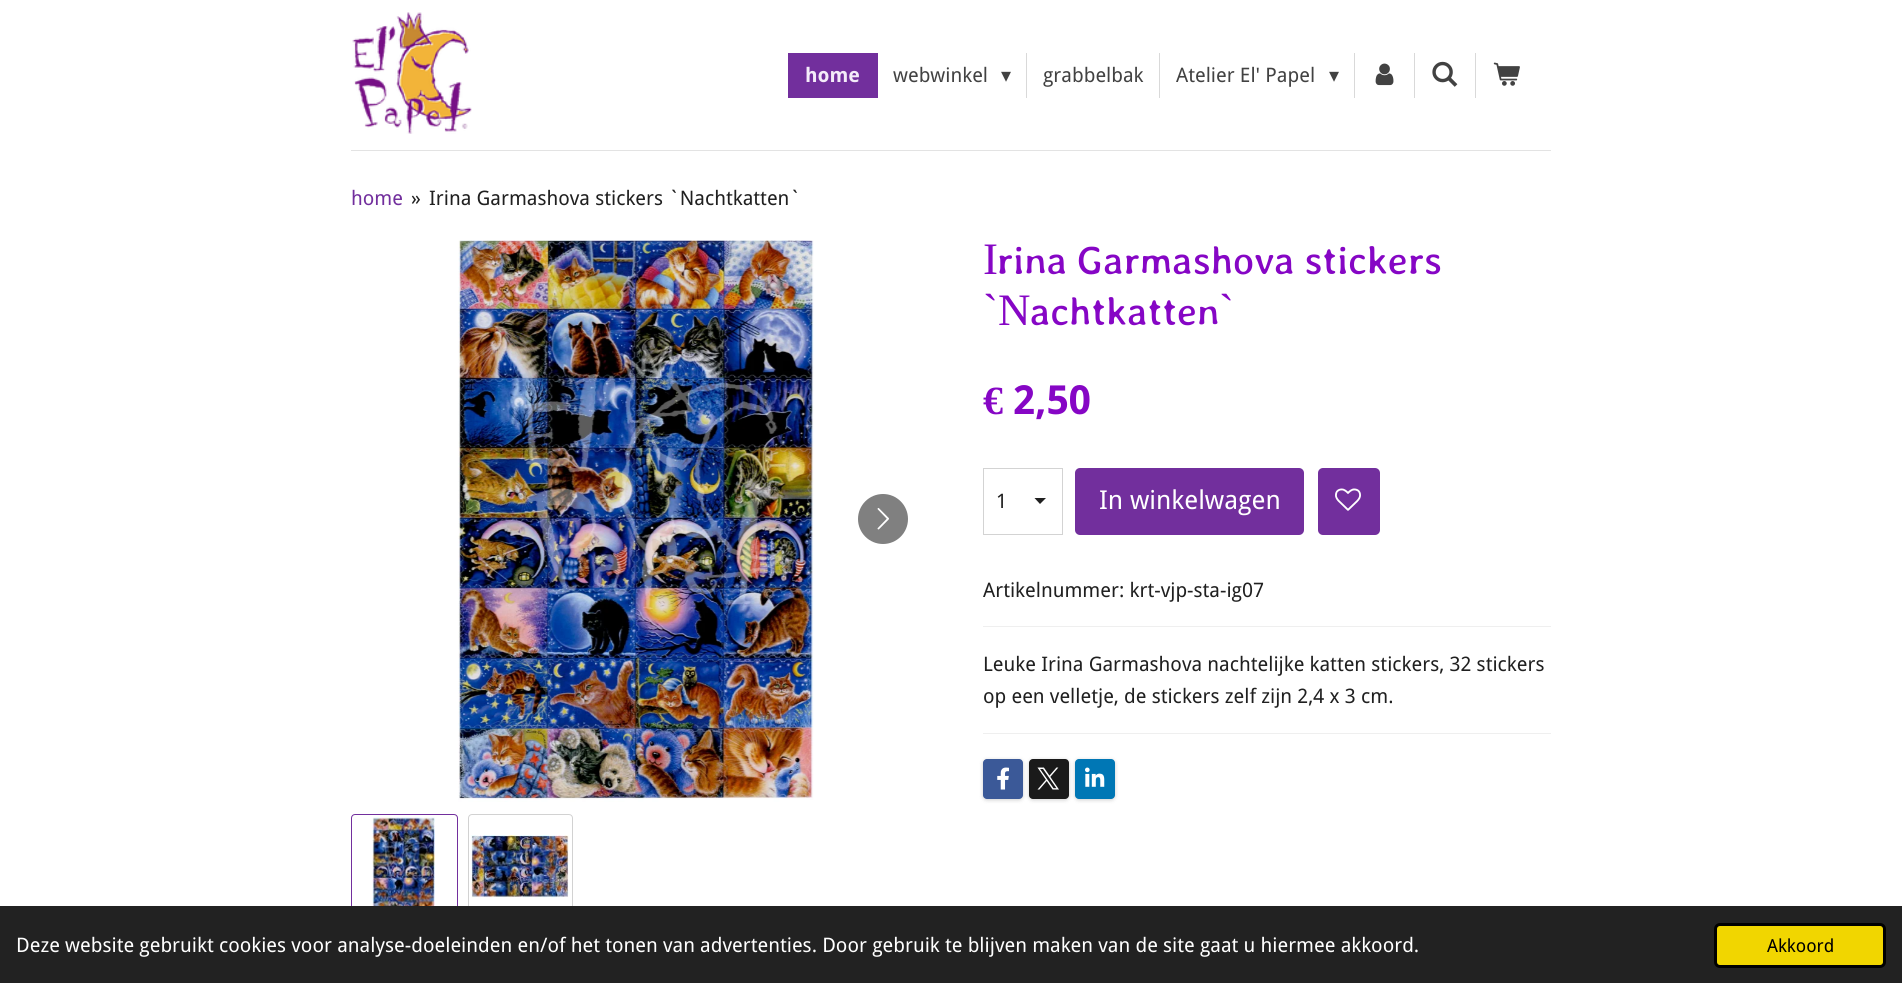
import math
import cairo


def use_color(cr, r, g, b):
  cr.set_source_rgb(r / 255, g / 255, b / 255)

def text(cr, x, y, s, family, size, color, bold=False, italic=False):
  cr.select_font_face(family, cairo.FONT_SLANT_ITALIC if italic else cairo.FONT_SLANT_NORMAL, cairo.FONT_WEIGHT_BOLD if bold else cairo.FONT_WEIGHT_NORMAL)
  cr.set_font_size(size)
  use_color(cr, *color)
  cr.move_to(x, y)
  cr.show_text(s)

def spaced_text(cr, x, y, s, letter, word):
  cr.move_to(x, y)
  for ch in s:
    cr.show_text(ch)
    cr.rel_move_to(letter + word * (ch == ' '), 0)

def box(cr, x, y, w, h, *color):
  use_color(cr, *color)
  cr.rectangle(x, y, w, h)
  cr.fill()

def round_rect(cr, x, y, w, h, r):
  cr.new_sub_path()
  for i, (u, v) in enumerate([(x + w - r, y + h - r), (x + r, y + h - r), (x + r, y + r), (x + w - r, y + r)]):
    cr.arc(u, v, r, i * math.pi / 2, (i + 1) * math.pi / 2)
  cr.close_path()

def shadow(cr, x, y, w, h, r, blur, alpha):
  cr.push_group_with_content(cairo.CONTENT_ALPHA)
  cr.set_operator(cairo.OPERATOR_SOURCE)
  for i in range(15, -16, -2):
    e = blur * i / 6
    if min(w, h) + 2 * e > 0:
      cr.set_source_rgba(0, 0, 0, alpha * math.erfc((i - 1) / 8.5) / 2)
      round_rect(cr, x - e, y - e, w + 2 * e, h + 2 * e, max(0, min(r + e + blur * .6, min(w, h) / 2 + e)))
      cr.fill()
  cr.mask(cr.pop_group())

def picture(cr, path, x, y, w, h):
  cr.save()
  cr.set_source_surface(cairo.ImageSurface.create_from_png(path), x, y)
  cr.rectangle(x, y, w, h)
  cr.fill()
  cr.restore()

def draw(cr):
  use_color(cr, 255, 255, 255)
  cr.paint()
  box(cr, 351, 150, 1200, 1, 227, 227, 227)
  picture(cr, "img_01.png", 352, 12, 120, 122)
  box(cr, 788, 53, 90, 45, 114, 47, 157)
  box(cr, 1026, 53, 1, 45, 217, 217, 217)
  box(cr, 1159, 53, 1, 45, 217, 217, 217)
  box(cr, 1354, 53, 1, 45, 217, 217, 217)
  picture(cr, "img_02.png", 1375, 63, 19, 23)
  box(cr, 1414, 53, 1, 45, 217, 217, 217)
  picture(cr, "img_03.png", 1432, 61, 26, 26)
  box(cr, 1475, 53, 1, 45, 217, 217, 217)
  picture(cr, "img_04.png", 1493, 62, 27, 24)
  picture(cr, "img_05.png", 458, 240, 356, 562)
  use_color(cr, 128, 128, 128)
  cr.arc(883, 519, 25, 0, 2 * math.pi)
  cr.fill()
  picture(cr, "img_06.png", 877, 508, 12, 22)
  round_rect(cr, 351.5, 814.5, 106, 104, 3.5)
  use_color(cr, 114, 47, 157)
  cr.set_line_width(1)
  cr.stroke()
  picture(cr, "img_07.png", 372, 817, 63, 89)
  round_rect(cr, 468.5, 814.5, 104, 104, 3.5)
  use_color(cr, 210, 210, 210)
  cr.stroke()
  picture(cr, "img_08.png", 471, 835, 98, 63)
  cr.save()
  cr.rectangle(1034, 498, 14, 7)
  cr.clip()
  use_color(cr, 32, 32, 32)
  cr.new_path()
  cr.move_to(1040, 504)
  cr.line_to(1034, 497.5)
  cr.line_to(1046.5, 497.5)
  cr.close_path()
  cr.fill()
  cr.restore()
  cr.rectangle(983.5, 468.5, 79, 66)
  use_color(cr, 211, 211, 211)
  cr.stroke()
  use_color(cr, 114, 47, 157)
  round_rect(cr, 1075, 468, 229, 67, 5)
  cr.fill()
  round_rect(cr, 1318, 468, 62, 67, 5)
  cr.fill()
  picture(cr, "img_09.png", 1335, 488, 26, 23)
  box(cr, 983, 626, 568, 1, 239, 239, 239)
  box(cr, 983, 733, 568, 1, 239, 239, 239)
  use_color(cr, 0, 0, 0)
  shadow(cr, 983, 760, 40, 40, 4, 2, 0.2)
  use_color(cr, 59, 89, 152)
  round_rect(cr, 983, 759, 40, 40, 4)
  cr.fill()
  picture(cr, "img_10.png", 997, 767, 12, 23)
  use_color(cr, 0, 0, 0)
  shadow(cr, 1029, 760, 40, 40, 4, 2, 0.2)
  use_color(cr, 26, 26, 26)
  round_rect(cr, 1029, 759, 40, 40, 4)
  cr.fill()
  picture(cr, "img_11.png", 1037, 767, 22, 23)
  use_color(cr, 0, 0, 0)
  shadow(cr, 1075, 760, 40, 40, 4, 2, 0.2)
  use_color(cr, 0, 119, 181)
  round_rect(cr, 1075, 759, 40, 40, 4)
  cr.fill()
  picture(cr, "img_12.png", 1085, 767, 20, 20)
  box(cr, 0, 906, 1902, 77, 34, 34, 34)
  use_color(cr, 241, 214, 0)
  round_rect(cr, 1715.5, 924.5, 169, 42, 4.5)
  cr.fill_preserve()
  use_color(cr, 0, 0, 0)
  cr.set_line_width(3)
  cr.stroke()
  text(cr, 805, 82, "home", "Droid Sans", 20, (244, 235, 249), bold=True)
  text(cr, 893, 82, "webwinkel", "Droid Sans", 20, (66, 66, 66))
  text(cr, 1001, 82, "▾", "DejaVu Sans", 20, (66, 66, 66))
  text(cr, 1043, 82, "grabbelbak", "Droid Sans", 20, (66, 66, 66))
  text(cr, 1176, 82, "Atelier El' Papel", "Droid Sans", 20, (66, 66, 66))
  text(cr, 1329, 82, "▾", "DejaVu Sans", 20, (66, 66, 66))
  text(cr, 351, 205, "home", "Droid Sans", 20, (114, 47, 157))
  text(cr, 411, 205, "»", "Droid Sans", 20, (32, 32, 32))
  text(cr, 429, 205, "Irina Garmashova stickers `Nachtkatten`", "Droid Sans", 20, (32, 32, 32))
  text(cr, 983, 274, "I", "Liberation Serif", 45, (134, 6, 197))
  cr.select_font_face("Stylish")
  spaced_text(cr, 997, 274, "rina Garmashova stickers", 0, -1)
  text(cr, 983, 325, "`N", "Liberation Serif", 45, (134, 6, 197))
  text(cr, 1030, 325, "achtkatten", "Stylish", 45, (134, 6, 197))
  text(cr, 1219, 325, "`", "Liberation Serif", 45, (134, 6, 197))
  text(cr, 983, 414, "€", "Liberation Serif", 40, (134, 6, 197), bold=True)
  text(cr, 1013, 414, "2,50", "Droid Sans", 40, (134, 6, 197), bold=True)
  text(cr, 996, 508, "1", "Droid Sans", 20, (32, 32, 32))
  text(cr, 1099, 509, "In winkelwagen", "Droid Sans", 26, (255, 255, 255))
  text(cr, 983, 597, "Artikelnummer: krt-vjp-sta-ig07", "Droid Sans", 20, (32, 32, 32))
  text(cr, 983, 671, "Leuke Irina Garmashova nachtelijke katten stickers, 32 stickers", "Droid Sans", 20, (32, 32, 32))
  text(cr, 983, 703, "op een velletje, de stickers zelf zijn 2,4 x 3 cm.", "Droid Sans", 20, (32, 32, 32))
  text(cr, 16, 952, "Deze website gebruikt cookies voor analyse-doeleinden en/of het tonen van advertenties. Door gebruik te blijven maken van de site gaat u hiermee akkoord.", "Droid Sans", 20, (255, 255, 255))
  text(cr, 1767, 952, "Akkoord", "Droid Sans", 18, (0, 0, 0))


surface = cairo.ImageSurface(cairo.FORMAT_RGB24, 1902, 983)
cr = cairo.Context(surface)
options = cairo.FontOptions()
options.set_hint_metrics(cairo.HINT_METRICS_OFF)
options.set_hint_style(cairo.HINT_STYLE_NONE)
cr.set_font_options(options)
cr.set_miter_limit(4)
draw(cr)
surface.write_to_png("out.png")
